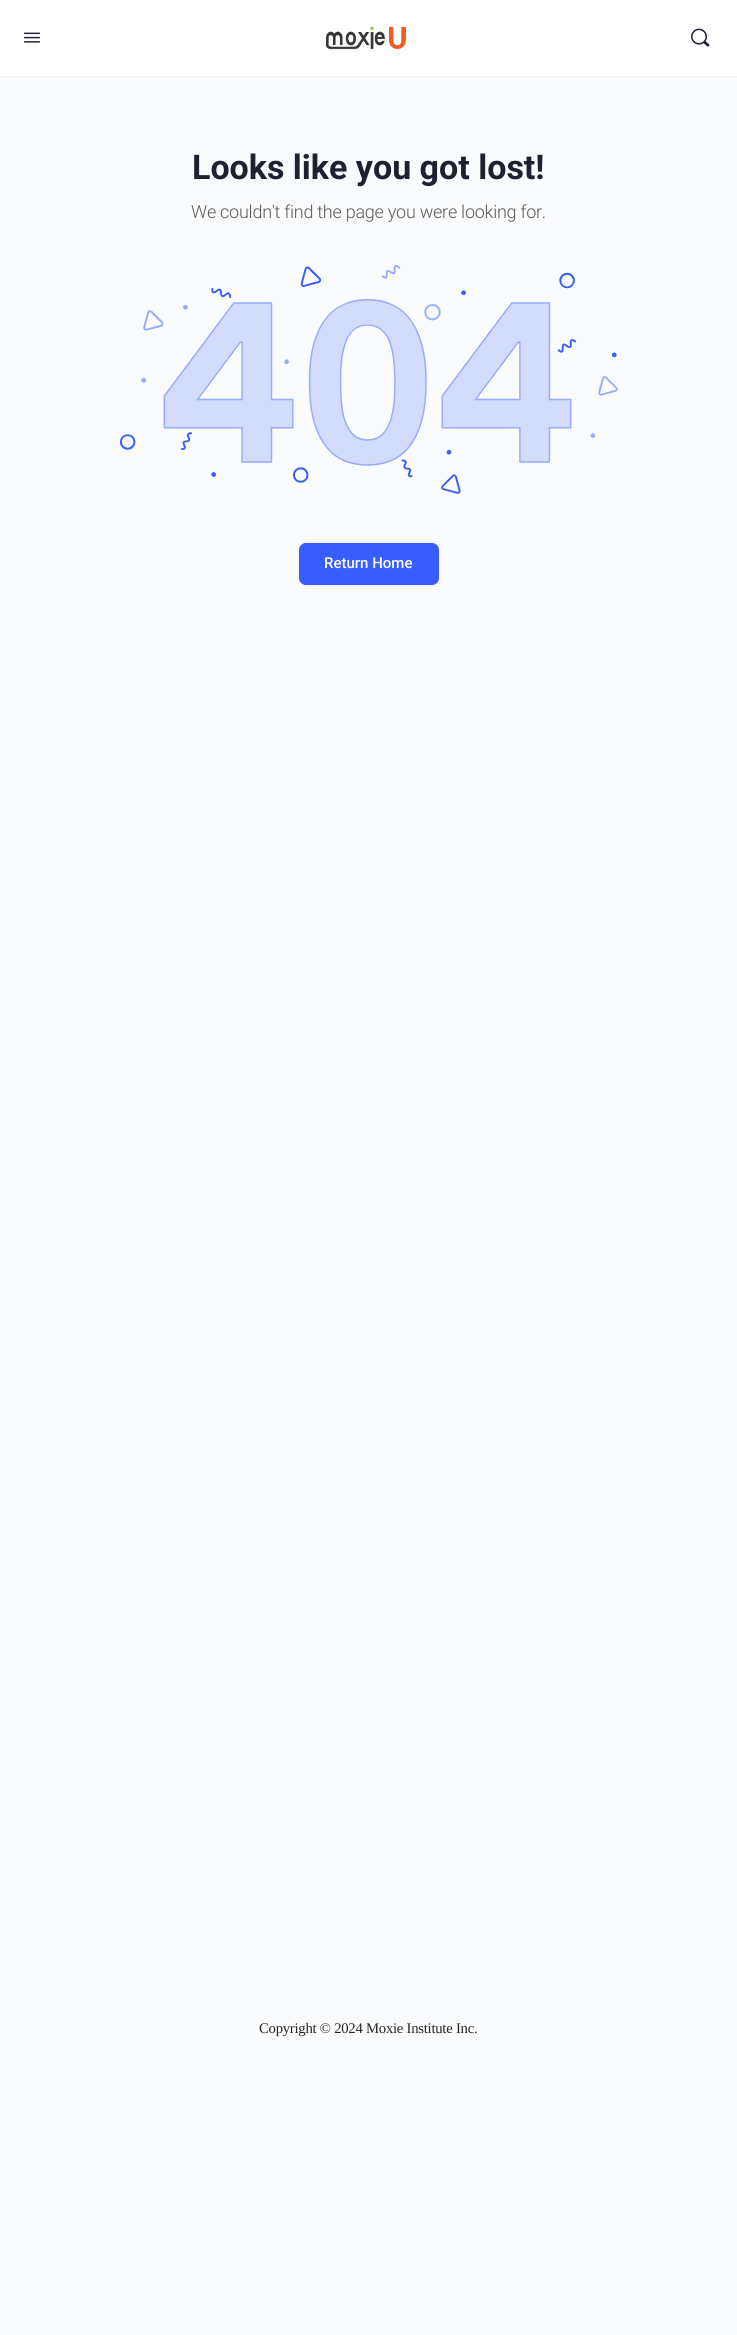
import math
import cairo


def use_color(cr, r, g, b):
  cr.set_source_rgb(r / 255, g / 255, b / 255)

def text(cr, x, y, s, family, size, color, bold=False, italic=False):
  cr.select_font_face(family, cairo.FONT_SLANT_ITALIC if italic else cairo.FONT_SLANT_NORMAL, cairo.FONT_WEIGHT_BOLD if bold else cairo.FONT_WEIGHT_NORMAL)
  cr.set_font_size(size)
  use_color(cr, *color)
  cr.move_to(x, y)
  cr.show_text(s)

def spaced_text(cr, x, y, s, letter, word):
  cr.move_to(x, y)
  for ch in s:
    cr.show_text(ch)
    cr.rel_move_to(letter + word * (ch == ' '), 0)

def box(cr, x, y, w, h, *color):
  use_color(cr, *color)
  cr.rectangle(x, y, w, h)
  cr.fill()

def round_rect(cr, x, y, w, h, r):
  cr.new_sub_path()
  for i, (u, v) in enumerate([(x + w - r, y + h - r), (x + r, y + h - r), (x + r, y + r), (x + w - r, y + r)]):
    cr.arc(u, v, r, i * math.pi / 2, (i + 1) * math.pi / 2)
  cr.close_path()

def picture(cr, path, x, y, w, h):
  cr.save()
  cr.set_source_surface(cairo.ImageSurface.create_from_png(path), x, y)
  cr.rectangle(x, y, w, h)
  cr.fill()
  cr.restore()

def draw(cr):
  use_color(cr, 250, 251, 253)
  cr.paint()
  box(cr, 0, 76, 737, 1, 242, 243, 246)
  box(cr, 0, 0, 737, 76, 255, 255, 255)
  picture(cr, "img_01.png", 24, 32, 16, 11)
  picture(cr, "img_02.png", 326, 26, 80, 24)
  picture(cr, "img_03.png", 691, 28, 19, 19)
  picture(cr, "img_04.png", 119, 265, 499, 229)
  use_color(cr, 56, 93, 255)
  round_rect(cr, 299.5, 543.5, 139, 41, 6.5)
  cr.fill_preserve()
  cr.set_line_width(1)
  cr.stroke()
  text(cr, 192, 179, "Looks like you got lost!", "Roboto", 34, (30, 33, 50), bold=True)
  cr.select_font_face("Roboto Light")
  cr.set_font_size(18)
  use_color(cr, 90, 90, 90)
  spaced_text(cr, 191, 218, "We couldn't find the page you were looking for.", -0.25, 0)
  text(cr, 324, 568, "Return Home", "Roboto Medium", 15, (255, 255, 255))
  cr.select_font_face("Liberation Serif")
  cr.set_font_size(14.7)
  use_color(cr, 38, 38, 38)
  spaced_text(cr, 259, 2033, "Copyright © 2024 Moxie Institute Inc.", -0.25, 0)


surface = cairo.ImageSurface(cairo.FORMAT_RGB24, 737, 2335)
cr = cairo.Context(surface)
options = cairo.FontOptions()
options.set_hint_metrics(cairo.HINT_METRICS_OFF)
options.set_hint_style(cairo.HINT_STYLE_NONE)
cr.set_font_options(options)
cr.set_miter_limit(4)
draw(cr)
surface.write_to_png("out.png")
